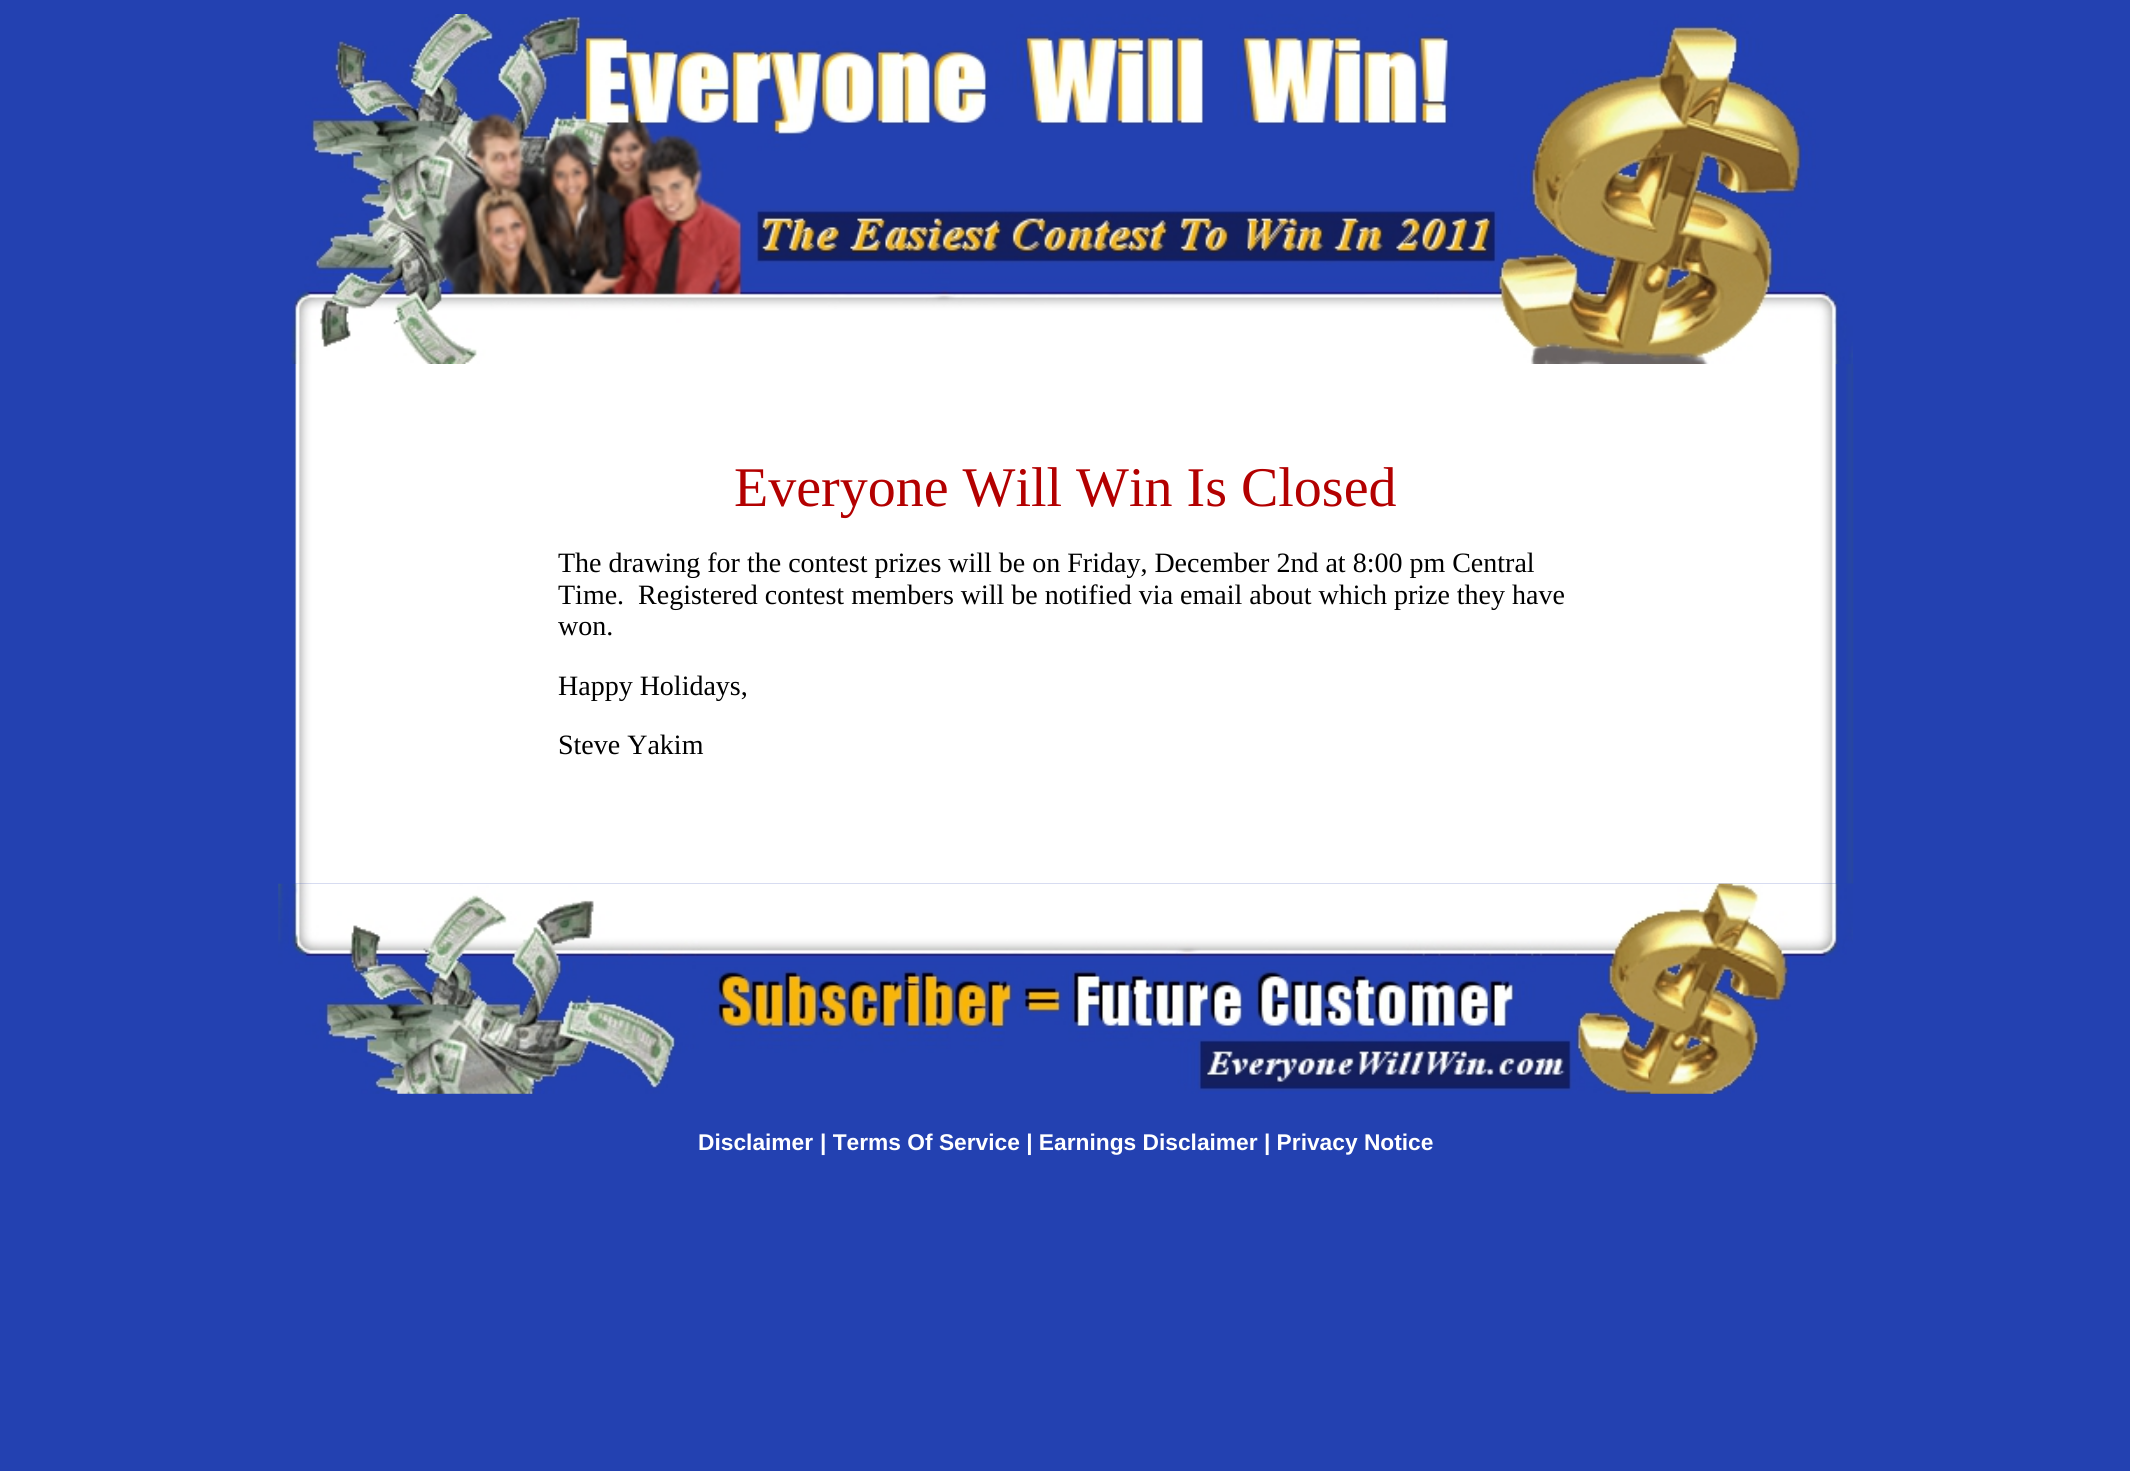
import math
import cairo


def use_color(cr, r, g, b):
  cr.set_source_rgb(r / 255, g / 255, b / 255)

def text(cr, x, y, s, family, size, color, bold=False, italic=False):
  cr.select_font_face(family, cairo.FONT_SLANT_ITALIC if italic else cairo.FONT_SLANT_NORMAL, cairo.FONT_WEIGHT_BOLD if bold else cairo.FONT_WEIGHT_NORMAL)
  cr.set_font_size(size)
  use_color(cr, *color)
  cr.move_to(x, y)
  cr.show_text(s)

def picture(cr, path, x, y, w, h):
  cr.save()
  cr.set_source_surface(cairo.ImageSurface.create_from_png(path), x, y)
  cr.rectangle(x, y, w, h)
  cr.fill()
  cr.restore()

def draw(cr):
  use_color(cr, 35, 65, 177)
  cr.paint()
  picture(cr, "img_01.png", 290, 14, 1563, 350)
  picture(cr, "img_02.png", 293, 364, 1561, 520)
  picture(cr, "img_03.png", 278, 883, 1575, 211)
  text(cr, 734, 506, "Everyone Will Win Is Closed", "Liberation Serif", 56, (179, 0, 0))
  text(cr, 558, 572, "The drawing for the contest prizes will be on Friday, December 2nd at 8:00 pm Central", "Liberation Serif", 28, (0, 0, 0))
  text(cr, 558, 604, "Time.  Registered contest members will be notified via email about which prize they have", "Liberation Serif", 28, (0, 0, 0))
  text(cr, 558, 635, "won.", "Liberation Serif", 28, (0, 0, 0))
  text(cr, 558, 695, "Happy Holidays,", "Liberation Serif", 28, (0, 0, 0))
  text(cr, 558, 754, "Steve Yakim", "Liberation Serif", 28, (0, 0, 0))
  text(cr, 698, 1150, "Disclaimer", "Liberation Sans", 22.75, (255, 255, 255), bold=True)
  text(cr, 820, 1150, "| Terms Of Service | Earnings Disclaimer | Privacy Notice", "Liberation Sans", 22.75, (255, 255, 255), bold=True)


surface = cairo.ImageSurface(cairo.FORMAT_RGB24, 2130, 1471)
cr = cairo.Context(surface)
options = cairo.FontOptions()
options.set_hint_metrics(cairo.HINT_METRICS_OFF)
options.set_hint_style(cairo.HINT_STYLE_NONE)
cr.set_font_options(options)
cr.set_miter_limit(4)
draw(cr)
surface.write_to_png("out.png")
